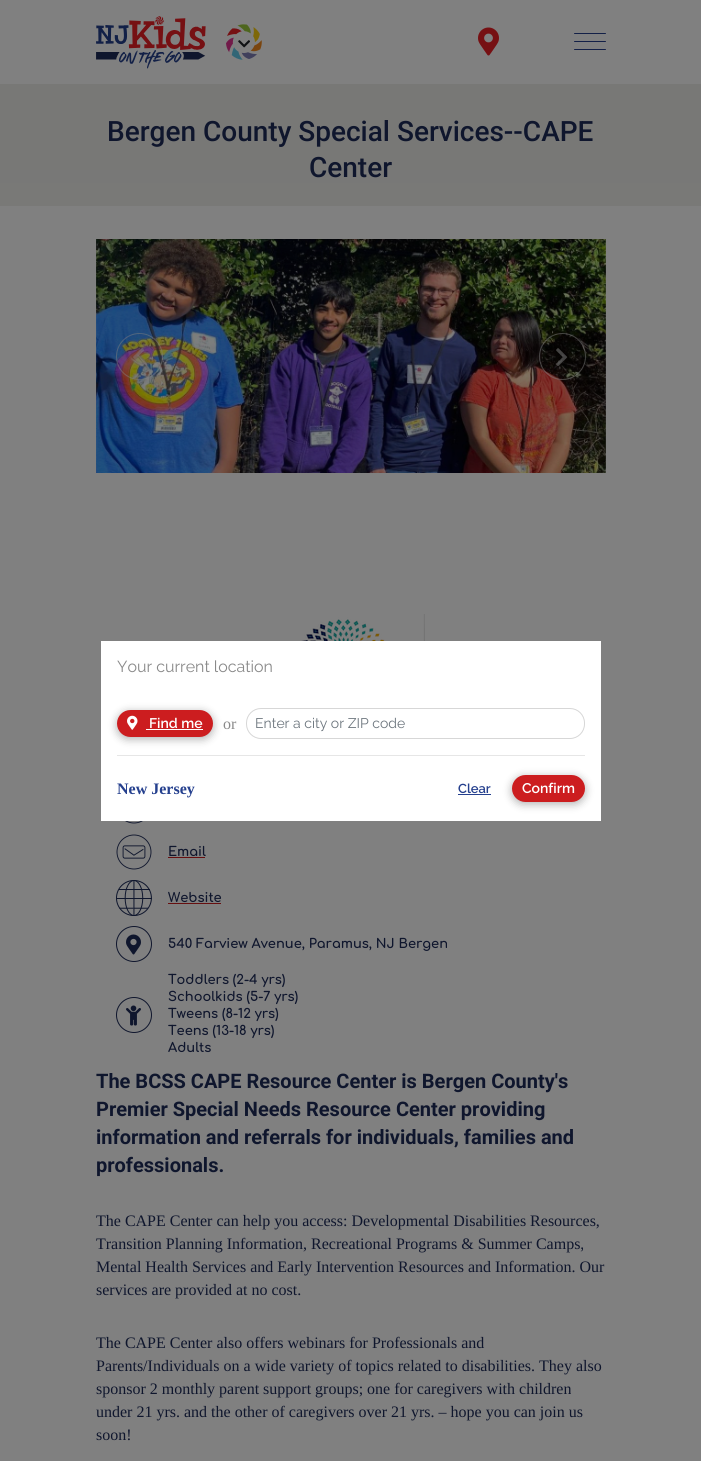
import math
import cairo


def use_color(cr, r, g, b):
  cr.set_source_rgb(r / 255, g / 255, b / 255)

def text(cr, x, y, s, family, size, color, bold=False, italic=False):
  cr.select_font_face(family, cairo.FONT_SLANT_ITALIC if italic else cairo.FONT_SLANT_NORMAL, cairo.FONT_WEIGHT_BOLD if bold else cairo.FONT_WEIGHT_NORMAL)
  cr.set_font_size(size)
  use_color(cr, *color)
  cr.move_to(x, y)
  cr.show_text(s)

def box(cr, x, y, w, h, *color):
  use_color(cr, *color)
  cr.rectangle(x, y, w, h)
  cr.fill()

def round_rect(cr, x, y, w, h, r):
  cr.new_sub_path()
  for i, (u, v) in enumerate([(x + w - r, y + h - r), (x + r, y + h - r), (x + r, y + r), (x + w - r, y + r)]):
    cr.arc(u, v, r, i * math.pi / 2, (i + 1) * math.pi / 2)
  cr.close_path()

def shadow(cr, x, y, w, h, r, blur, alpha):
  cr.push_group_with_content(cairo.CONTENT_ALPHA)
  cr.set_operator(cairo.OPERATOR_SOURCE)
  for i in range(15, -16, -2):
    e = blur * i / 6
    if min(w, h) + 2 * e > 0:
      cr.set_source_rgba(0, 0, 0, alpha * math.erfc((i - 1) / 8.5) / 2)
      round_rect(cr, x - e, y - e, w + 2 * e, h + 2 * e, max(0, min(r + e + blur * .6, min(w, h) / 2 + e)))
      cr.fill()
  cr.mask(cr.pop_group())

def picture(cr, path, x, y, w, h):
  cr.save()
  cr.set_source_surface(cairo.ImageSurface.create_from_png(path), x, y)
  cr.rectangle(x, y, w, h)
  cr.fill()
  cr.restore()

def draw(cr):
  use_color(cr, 128, 128, 128)
  cr.paint()
  picture(cr, "img_01.png", 96, 16, 110, 53)
  picture(cr, "img_02.png", 226, 24, 36, 36)
  picture(cr, "img_03.png", 238, 40, 12, 8)
  picture(cr, "img_04.png", 478, 27, 21, 29)
  use_color(cr, 19, 32, 71)
  round_rect(cr, 574, 41, 32, 1, 0.5)
  cr.fill()
  round_rect(cr, 574, 33, 32, 1, 0.5)
  cr.fill()
  round_rect(cr, 574, 49, 32, 1, 0.5)
  cr.fill()
  gradient = cairo.LinearGradient(351, 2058, 351, 84)
  gradient.add_color_stop_rgba(0, 0.502, 0.502, 0.502, 1)
  gradient.add_color_stop_rgba(1, 0.471, 0.471, 0.463, 1)
  cr.set_source(gradient)
  cr.rectangle(0, 84, 701, 122)
  cr.fill()
  picture(cr, "img_05.png", 96, 239, 510, 234)
  cr.arc(139.5, 356.5, 23, 0, 2 * math.pi)
  cr.set_source_rgba(0.502, 0.502, 0.502, 0.5)
  cr.set_line_width(1)
  cr.stroke()
  picture(cr, "img_06.png", 133, 348, 11, 18)
  cr.arc(562.5, 356.5, 23, 0, 2 * math.pi)
  cr.stroke()
  picture(cr, "img_07.png", 556, 348, 11, 18)
  picture(cr, "img_08.png", 274, 614, 151, 27)
  picture(cr, "img_09.png", 125, 821, 18, 3)
  picture(cr, "img_10.png", 116, 834, 36, 36)
  box(cr, 168, 857, 37, 1, 102, 15, 16)
  picture(cr, "img_11.png", 116, 880, 36, 36)
  box(cr, 168, 903, 53, 1, 102, 15, 16)
  cr.arc(134, 944, 17.5, 0, 2 * math.pi)
  use_color(cr, 15, 22, 45)
  cr.stroke()
  picture(cr, "img_12.png", 126, 934, 15, 21)
  cr.arc(134, 1015, 17.5, 0, 2 * math.pi)
  cr.stroke()
  picture(cr, "img_13.png", 126, 1005, 15, 21)
  box(cr, 101, 641, 500, 180, 255, 255, 255)
  use_color(cr, 0, 0, 0)
  shadow(cr, 117, 712, 96, 27, 13.5, 4.5, 0.31)
  use_color(cr, 204, 29, 31)
  round_rect(cr, 117, 710, 96, 27, 13.5)
  cr.fill()
  picture(cr, "img_14.png", 127, 715, 11, 15)
  box(cr, 146, 729, 57, 1, 255, 255, 255)
  round_rect(cr, 246.5, 708.5, 338, 30, 14.5)
  use_color(cr, 215, 215, 215)
  cr.stroke()
  box(cr, 117, 755, 468, 1, 230, 230, 230)
  box(cr, 458, 794, 33, 1, 37, 64, 142)
  use_color(cr, 0, 0, 0)
  shadow(cr, 512, 777, 73, 27, 13.5, 4.5, 0.31)
  use_color(cr, 204, 29, 31)
  round_rect(cr, 512, 775, 73, 27, 13.5)
  cr.fill()
  text(cr, 107, 141, "Bergen County Special Services--CAPE", "Roboto Medium", 28, (15, 22, 45))
  text(cr, 309, 177, "Center", "Roboto Medium", 28, (15, 22, 45))
  text(cr, 168, 856, "Email", "Comfortaa", 13, (15, 22, 45), bold=True)
  text(cr, 168, 902, "Website", "Comfortaa", 13, (15, 22, 45), bold=True)
  text(cr, 168, 948, "540 Farview Avenue, Paramus, NJ Bergen", "Comfortaa", 13, (15, 22, 45), bold=True)
  text(cr, 168, 984, "Toddlers (2-4 yrs)", "Comfortaa", 13, (15, 22, 45), bold=True)
  text(cr, 168, 1001, "Schoolkids (5-7 yrs)", "Comfortaa", 13, (15, 22, 45), bold=True)
  text(cr, 168, 1018, "Tweens (8-12 yrs)", "Comfortaa", 13, (15, 22, 45), bold=True)
  text(cr, 168, 1035, "Teens (13-18 yrs)", "Comfortaa", 13, (15, 22, 45), bold=True)
  text(cr, 168, 1052, "Adults", "Comfortaa", 13, (15, 22, 45), bold=True)
  text(cr, 96, 1088, "The BCSS CAPE Resource Center is Bergen County's", "Roboto", 20, (15, 22, 45), bold=True)
  text(cr, 96, 1116, "Premier Special Needs Resource Center providing", "Roboto", 20, (15, 22, 45), bold=True)
  text(cr, 96, 1144, "information and referrals for individuals, families and", "Roboto", 20, (15, 22, 45), bold=True)
  text(cr, 96, 1172, "professionals.", "Roboto", 20, (15, 22, 45), bold=True)
  text(cr, 96, 1226, "The CAPE Center can help you access: Developmental Disabilities Resources,", "Liberation Serif", 16, (15, 22, 45))
  text(cr, 96, 1249, "Transition Planning Information, Recreational Programs & Summer Camps,", "Liberation Serif", 16, (15, 22, 45))
  text(cr, 96, 1272, "Mental Health Services and Early Intervention Resources and Information. Our", "Liberation Serif", 16, (15, 22, 45))
  text(cr, 96, 1295, "services are provided at no cost.", "Liberation Serif", 16, (15, 22, 45))
  text(cr, 96, 1348, "The CAPE Center also offers webinars for Professionals and", "Liberation Serif", 16, (15, 22, 45))
  text(cr, 96, 1371, "Parents/Individuals on a wide variety of topics related to disabilities. They also", "Liberation Serif", 16, (15, 22, 45))
  text(cr, 96, 1394, "sponsor 2 monthly parent support groups; one for caregivers with children", "Liberation Serif", 16, (15, 22, 45))
  text(cr, 96, 1417, "under 21 yrs. and the other of caregivers over 21 yrs. – hope you can join us", "Liberation Serif", 16, (15, 22, 45))
  text(cr, 96, 1440, "soon!", "Liberation Serif", 16, (15, 22, 45))
  text(cr, 117, 672, "Your current location", "Raleway", 16, (137, 137, 137))
  text(cr, 149, 728, "Find me", "Raleway SemiBold", 14, (255, 255, 255))
  text(cr, 223, 729, "or", "Liberation Serif", 16, (137, 137, 137))
  text(cr, 255, 728, "Enter a city or ZIP code", "Raleway", 14, (108, 117, 125))
  text(cr, 117, 794, "New Jersey", "Liberation Serif", 16, (37, 64, 142), bold=True)
  text(cr, 458, 793, "Clear", "Raleway SemiBold", 13, (37, 64, 142))
  text(cr, 522, 793, "Confirm", "Raleway SemiBold", 14, (255, 255, 255))


surface = cairo.ImageSurface(cairo.FORMAT_RGB24, 701, 1461)
cr = cairo.Context(surface)
options = cairo.FontOptions()
options.set_hint_metrics(cairo.HINT_METRICS_OFF)
options.set_hint_style(cairo.HINT_STYLE_NONE)
cr.set_font_options(options)
cr.set_miter_limit(4)
draw(cr)
surface.write_to_png("out.png")
